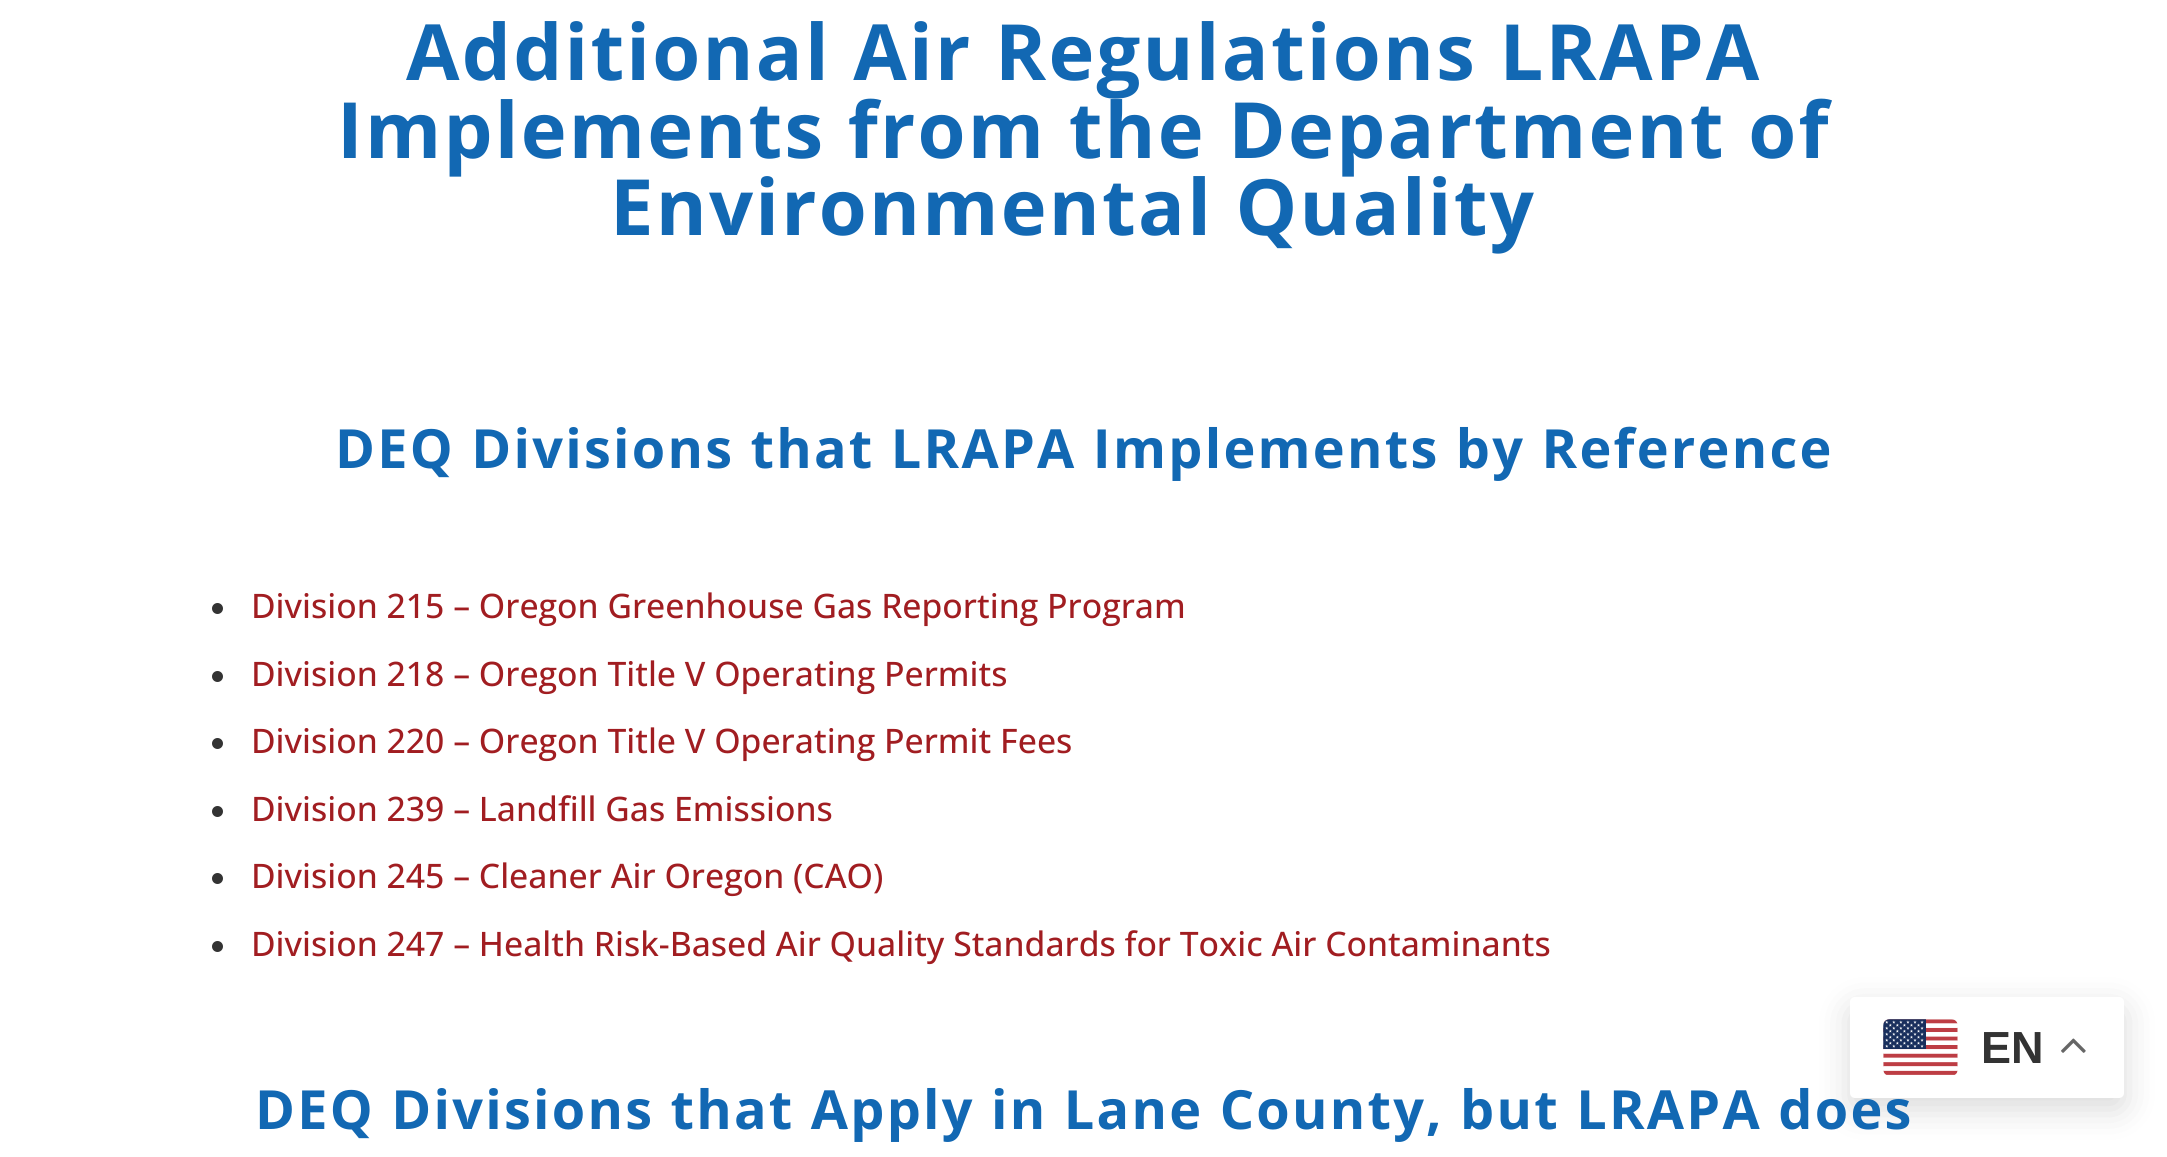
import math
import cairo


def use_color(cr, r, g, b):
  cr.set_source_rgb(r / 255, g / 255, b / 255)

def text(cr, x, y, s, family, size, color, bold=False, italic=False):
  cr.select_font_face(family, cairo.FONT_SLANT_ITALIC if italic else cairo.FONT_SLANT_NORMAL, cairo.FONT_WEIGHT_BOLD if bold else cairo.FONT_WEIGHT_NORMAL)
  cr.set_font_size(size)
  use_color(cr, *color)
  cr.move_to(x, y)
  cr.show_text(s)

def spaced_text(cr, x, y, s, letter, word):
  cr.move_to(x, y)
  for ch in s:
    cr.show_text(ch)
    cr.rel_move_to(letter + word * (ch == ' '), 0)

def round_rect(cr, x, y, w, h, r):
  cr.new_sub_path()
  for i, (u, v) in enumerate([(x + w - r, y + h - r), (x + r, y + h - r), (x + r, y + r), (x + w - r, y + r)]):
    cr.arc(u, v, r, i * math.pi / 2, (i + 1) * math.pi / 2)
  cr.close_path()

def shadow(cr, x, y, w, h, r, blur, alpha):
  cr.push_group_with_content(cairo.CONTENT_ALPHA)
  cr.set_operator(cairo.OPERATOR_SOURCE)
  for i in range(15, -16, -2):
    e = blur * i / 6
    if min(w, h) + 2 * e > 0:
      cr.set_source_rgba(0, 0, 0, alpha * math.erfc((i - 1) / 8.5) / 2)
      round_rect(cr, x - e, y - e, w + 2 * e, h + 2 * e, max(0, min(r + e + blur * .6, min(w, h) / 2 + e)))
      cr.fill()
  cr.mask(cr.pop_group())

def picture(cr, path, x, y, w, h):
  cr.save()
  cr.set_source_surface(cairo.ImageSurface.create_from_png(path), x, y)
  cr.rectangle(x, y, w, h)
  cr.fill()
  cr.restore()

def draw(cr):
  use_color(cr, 255, 255, 255)
  cr.paint()
  use_color(cr, 51, 51, 51)
  cr.arc(217.5, 608.5, 5.5, 0, 2 * math.pi)
  cr.fill()
  cr.arc(217.5, 676.5, 5.5, 0, 2 * math.pi)
  cr.fill()
  cr.arc(217.5, 743.5, 5.5, 0, 2 * math.pi)
  cr.fill()
  cr.arc(217.5, 811.5, 5.5, 0, 2 * math.pi)
  cr.fill()
  cr.arc(217.5, 878.5, 5.5, 0, 2 * math.pi)
  cr.fill()
  cr.arc(217.5, 946.5, 5.5, 0, 2 * math.pi)
  cr.fill()
  use_color(cr, 0, 0, 0)
  shadow(cr, 1850, 1008, 274, 101, 5, 17, 0.15)
  cr.select_font_face("Open Sans", cairo.FONT_SLANT_NORMAL, cairo.FONT_WEIGHT_BOLD)
  cr.set_font_size(77.6)
  use_color(cr, 18, 104, 179)
  spaced_text(cr, 406, 80, "Additional Air Regulations LRAPA", 2.25, 0)
  spaced_text(cr, 337, 158, "Implements from the Department of", 2.25, 0)
  spaced_text(cr, 610, 235, "Environmental Quality", 2.25, 0)
  cr.set_font_size(54)
  spaced_text(cr, 335, 468, "DEQ Divisions that LRAPA Implements by Reference", 2.25, 0)
  text(cr, 251, 618, "Division 215 – Oregon Greenhouse Gas Reporting Program", "Open Sans Medium", 33.75, (161, 29, 33))
  text(cr, 251, 686, "Division 218 – Oregon Title V Operating Permits", "Open Sans Medium", 33.75, (161, 29, 33))
  text(cr, 251, 753, "Division 220 – Oregon Title V Operating Permit Fees", "Open Sans Medium", 33.75, (161, 29, 33))
  text(cr, 251, 821, "Division 239 – Landfill Gas Emissions", "Open Sans Medium", 33.75, (161, 29, 33))
  text(cr, 251, 888, "Division 245 – Cleaner Air Oregon (CAO)", "Open Sans Medium", 33.75, (161, 29, 33))
  text(cr, 251, 956, "Division 247 – Health Risk-Based Air Quality Standards for Toxic Air Contaminants", "Open Sans Medium", 33.75, (161, 29, 33))
  cr.select_font_face("Open Sans", cairo.FONT_SLANT_NORMAL, cairo.FONT_WEIGHT_BOLD)
  cr.set_font_size(54)
  use_color(cr, 18, 104, 179)
  spaced_text(cr, 255, 1129, "DEQ Divisions that Apply in Lane County, but LRAPA does", 2.25, 0)
  use_color(cr, 255, 255, 255)
  round_rect(cr, 1850, 997, 274, 101, 5)
  cr.fill()
  picture(cr, "img_01.png", 1883, 1019, 75, 56)
  text(cr, 1981, 1063, "EN", "Liberation Sans", 45, (51, 51, 51), bold=True)
  picture(cr, "img_02.png", 2061, 1038, 25, 15)


surface = cairo.ImageSurface(cairo.FORMAT_RGB24, 2167, 1157)
cr = cairo.Context(surface)
options = cairo.FontOptions()
options.set_hint_metrics(cairo.HINT_METRICS_OFF)
options.set_hint_style(cairo.HINT_STYLE_NONE)
cr.set_font_options(options)
cr.set_miter_limit(4)
draw(cr)
surface.write_to_png("out.png")
